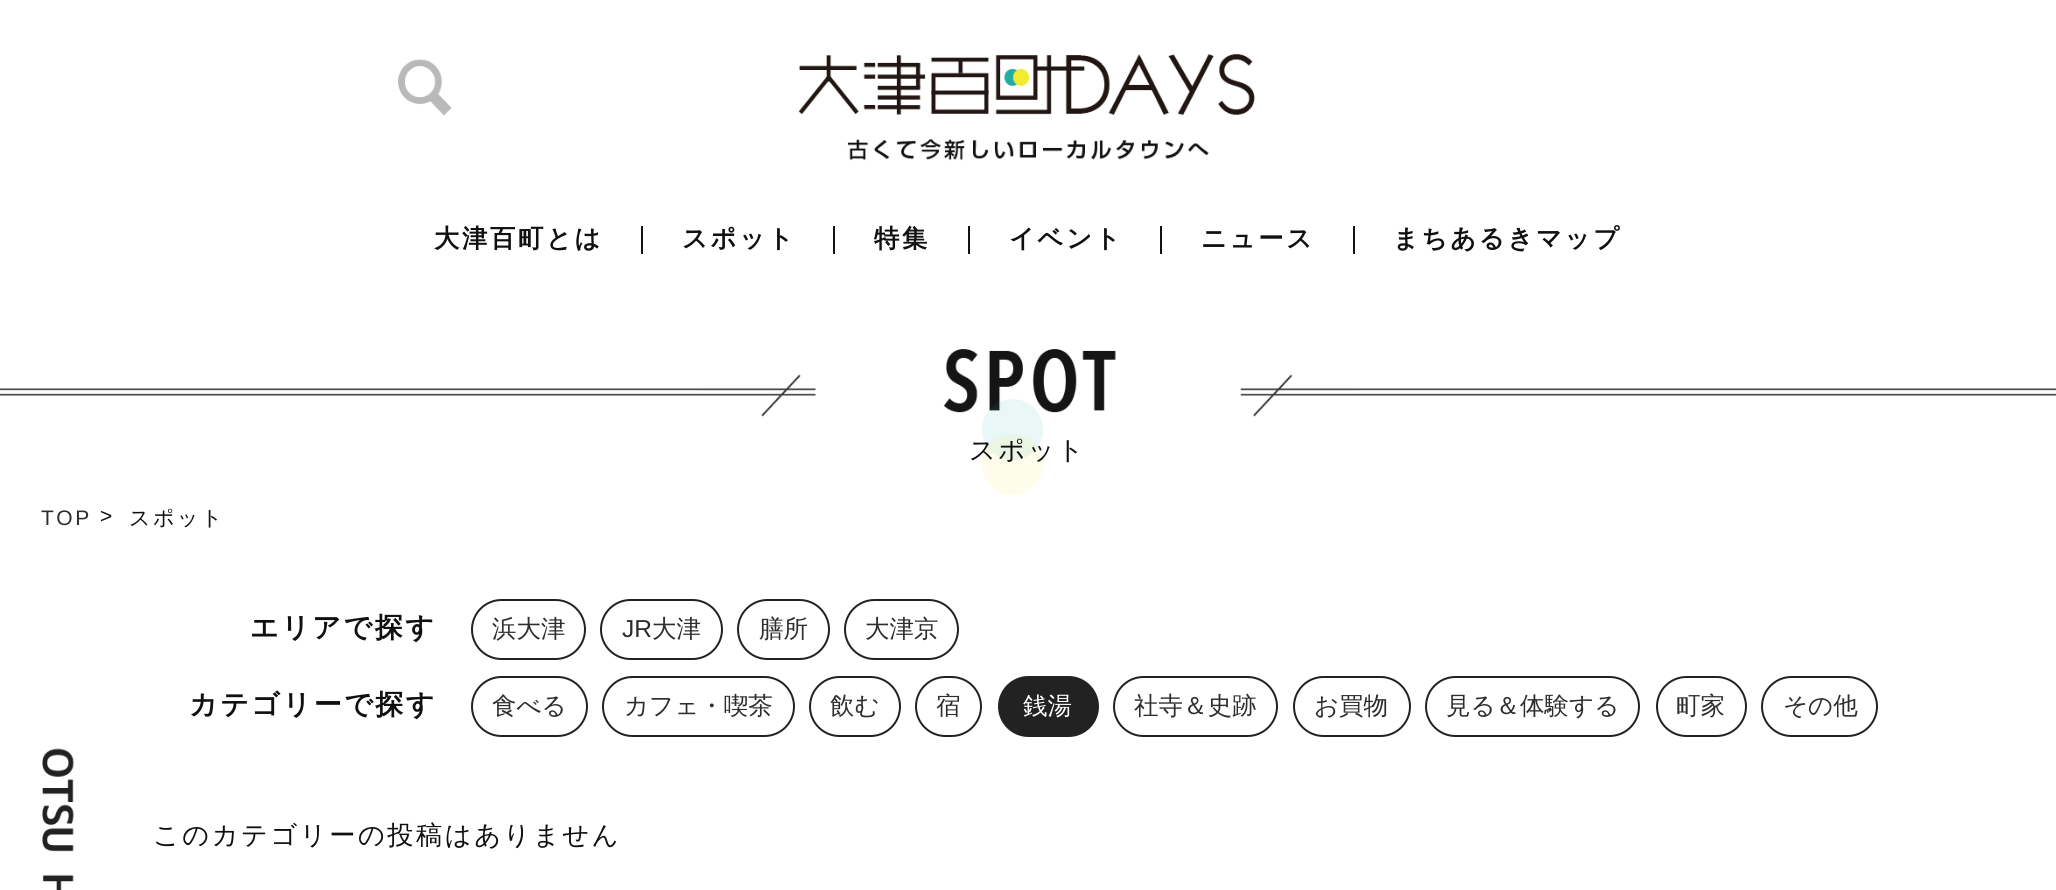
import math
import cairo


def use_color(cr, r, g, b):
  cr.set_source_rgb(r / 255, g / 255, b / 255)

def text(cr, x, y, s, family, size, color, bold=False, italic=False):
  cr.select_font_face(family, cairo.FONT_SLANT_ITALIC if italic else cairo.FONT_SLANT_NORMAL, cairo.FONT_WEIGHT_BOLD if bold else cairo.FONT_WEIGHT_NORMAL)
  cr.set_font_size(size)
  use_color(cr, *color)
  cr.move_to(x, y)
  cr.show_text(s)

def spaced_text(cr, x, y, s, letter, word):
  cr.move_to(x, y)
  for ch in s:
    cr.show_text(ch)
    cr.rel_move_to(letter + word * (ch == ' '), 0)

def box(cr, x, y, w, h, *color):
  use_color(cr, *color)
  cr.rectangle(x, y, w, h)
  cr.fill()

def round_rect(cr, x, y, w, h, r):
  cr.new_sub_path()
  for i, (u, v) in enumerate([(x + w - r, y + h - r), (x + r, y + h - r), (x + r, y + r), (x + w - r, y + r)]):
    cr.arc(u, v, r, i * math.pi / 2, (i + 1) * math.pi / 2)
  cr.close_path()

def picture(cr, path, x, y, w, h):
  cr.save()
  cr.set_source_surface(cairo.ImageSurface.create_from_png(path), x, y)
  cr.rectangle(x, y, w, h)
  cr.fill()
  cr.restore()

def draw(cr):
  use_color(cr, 255, 255, 255)
  cr.paint()
  picture(cr, "img_01.png", 398, 59, 54, 57)
  picture(cr, "img_02.png", 798, 54, 457, 107)
  box(cr, 641, 226, 2, 28, 19, 19, 19)
  box(cr, 833, 226, 2, 28, 19, 19, 19)
  box(cr, 968, 226, 2, 28, 19, 19, 19)
  box(cr, 1160, 226, 2, 28, 19, 19, 19)
  box(cr, 1353, 226, 2, 28, 19, 19, 19)
  picture(cr, "img_03.png", 0, 388, 2056, 8)
  picture(cr, "img_04.png", 700, 349, 656, 68)
  picture(cr, "img_05.png", 42, 748, 32, 142)
  round_rect(cr, 472, 600, 113, 59, 29.5)
  use_color(cr, 34, 34, 34)
  cr.stroke()
  round_rect(cr, 601, 600, 121, 59, 29.5)
  cr.stroke()
  round_rect(cr, 738, 600, 91, 59, 29.5)
  cr.stroke()
  round_rect(cr, 845, 600, 113, 59, 29.5)
  cr.stroke()
  round_rect(cr, 472, 677, 115, 59, 29.5)
  cr.stroke()
  round_rect(cr, 603, 677, 191, 59, 29.5)
  cr.stroke()
  round_rect(cr, 810, 677, 90, 59, 29.5)
  cr.stroke()
  round_rect(cr, 916, 677, 65, 59, 29.5)
  cr.stroke()
  round_rect(cr, 999, 677, 99, 59, 29.5)
  cr.fill_preserve()
  cr.stroke()
  round_rect(cr, 1114, 677, 163, 59, 29.5)
  cr.stroke()
  round_rect(cr, 1294, 677, 116, 59, 29.5)
  cr.stroke()
  round_rect(cr, 1426, 677, 213, 59, 29.5)
  cr.stroke()
  round_rect(cr, 1657, 677, 89, 59, 29.5)
  cr.stroke()
  round_rect(cr, 1762, 677, 115, 59, 29.5)
  cr.stroke()
  cr.set_source_rgba(0.137, 0.675, 0.643, 0.1)
  cr.arc(1012.5, 429.5, 30.5, 0, 2 * math.pi)
  cr.fill()
  cr.set_source_rgba(0.945, 0.922, 0.204, 0.1)
  cr.arc(1012.5, 464.5, 30.5, 0, 2 * math.pi)
  cr.fill()
  cr.select_font_face("WenQuanYi Zen Hei", cairo.FONT_SLANT_NORMAL, cairo.FONT_WEIGHT_BOLD)
  cr.set_font_size(25.25)
  use_color(cr, 16, 16, 16)
  spaced_text(cr, 434, 247, "大津百町とは", 2.75, 0)
  spaced_text(cr, 682, 247, "スポット", 2.75, 0)
  spaced_text(cr, 874, 247, "特集", 2.75, 0)
  spaced_text(cr, 1009, 247, "イベント", 2.75, 0)
  spaced_text(cr, 1201, 247, "ニュース", 2.75, 0)
  spaced_text(cr, 1393, 247, "まちあるきマップ", 2.75, 0)
  cr.select_font_face("WenQuanYi Zen Hei Medium")
  cr.set_font_size(26.25)
  spaced_text(cr, 969, 459, "スポット", 2.5, 0)
  cr.select_font_face("Liberation Sans")
  cr.set_font_size(21)
  use_color(cr, 45, 45, 45)
  spaced_text(cr, 41, 525, "TOP", 2.5, 0)
  use_color(cr, 16, 16, 16)
  spaced_text(cr, 100, 523, ">", 2.5, 0)
  cr.select_font_face("WenQuanYi Zen Hei Medium")
  spaced_text(cr, 129, 525, "スポット", 2.5, 0)
  cr.select_font_face("WenQuanYi Zen Hei", cairo.FONT_SLANT_NORMAL, cairo.FONT_WEIGHT_BOLD)
  cr.set_font_size(28)
  spaced_text(cr, 250, 637, "エリアで探す", 2.5, 0)
  text(cr, 492, 637, "浜大津", "WenQuanYi Zen Hei Medium", 24.5, (45, 45, 45))
  text(cr, 622, 637, "JR", "Liberation Sans", 24.5, (45, 45, 45))
  text(cr, 652, 637, "大津", "WenQuanYi Zen Hei Medium", 24.5, (45, 45, 45))
  text(cr, 759, 637, "膳所", "WenQuanYi Zen Hei Medium", 24.5, (45, 45, 45))
  text(cr, 865, 637, "大津京", "WenQuanYi Zen Hei Medium", 24.5, (45, 45, 45))
  cr.select_font_face("WenQuanYi Zen Hei", cairo.FONT_SLANT_NORMAL, cairo.FONT_WEIGHT_BOLD)
  cr.set_font_size(28)
  use_color(cr, 16, 16, 16)
  spaced_text(cr, 189, 714, "カテゴリーで探す", 2.5, 0)
  text(cr, 492, 714, "食べる", "WenQuanYi Zen Hei Medium", 24.5, (45, 45, 45))
  text(cr, 624, 714, "カフェ・喫茶", "WenQuanYi Zen Hei Medium", 24.5, (45, 45, 45))
  text(cr, 830, 714, "飲む", "WenQuanYi Zen Hei Medium", 24.5, (45, 45, 45))
  text(cr, 936, 714, "宿", "WenQuanYi Zen Hei Medium", 24.5, (45, 45, 45))
  text(cr, 1023, 714, "銭湯", "WenQuanYi Zen Hei Medium", 24.5, (255, 255, 255))
  text(cr, 1134, 714, "社寺＆史跡", "WenQuanYi Zen Hei Medium", 24.5, (45, 45, 45))
  text(cr, 1314, 714, "お買物", "WenQuanYi Zen Hei Medium", 24.5, (45, 45, 45))
  text(cr, 1446, 714, "見る＆体験する", "WenQuanYi Zen Hei Medium", 24.5, (45, 45, 45))
  text(cr, 1676, 714, "町家", "WenQuanYi Zen Hei Medium", 24.5, (45, 45, 45))
  text(cr, 1783, 714, "その他", "WenQuanYi Zen Hei Medium", 24.5, (45, 45, 45))
  cr.set_font_size(26.25)
  use_color(cr, 16, 16, 16)
  spaced_text(cr, 153, 844, "このカテゴリーの投稿はありません", 2.5, 0)


surface = cairo.ImageSurface(cairo.FORMAT_RGB24, 2056, 890)
cr = cairo.Context(surface)
options = cairo.FontOptions()
options.set_hint_metrics(cairo.HINT_METRICS_OFF)
options.set_hint_style(cairo.HINT_STYLE_NONE)
cr.set_font_options(options)
cr.set_miter_limit(4)
draw(cr)
surface.write_to_png("out.png")
